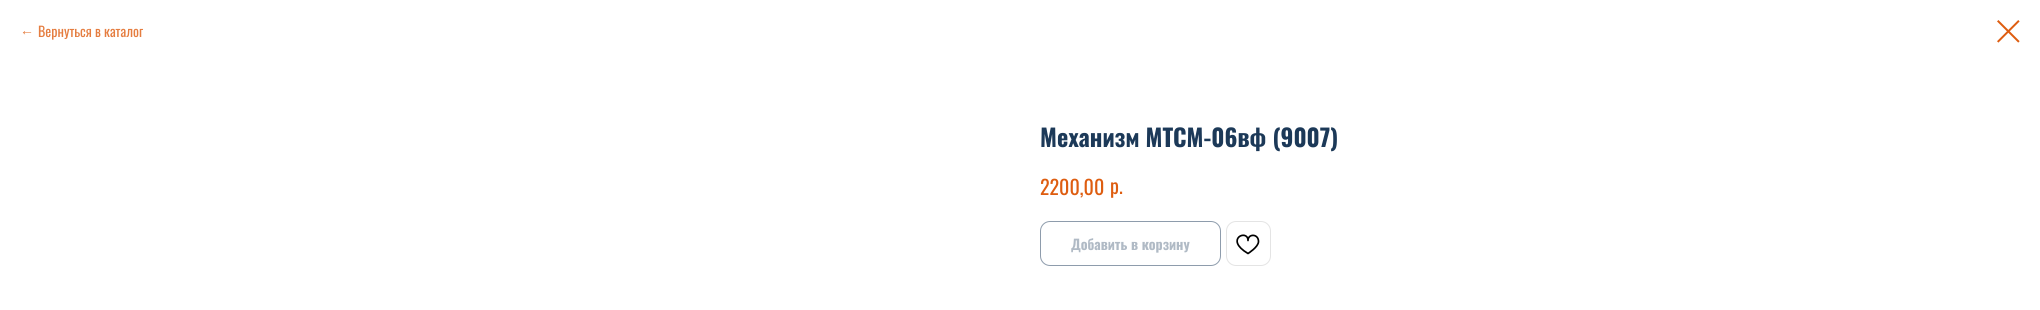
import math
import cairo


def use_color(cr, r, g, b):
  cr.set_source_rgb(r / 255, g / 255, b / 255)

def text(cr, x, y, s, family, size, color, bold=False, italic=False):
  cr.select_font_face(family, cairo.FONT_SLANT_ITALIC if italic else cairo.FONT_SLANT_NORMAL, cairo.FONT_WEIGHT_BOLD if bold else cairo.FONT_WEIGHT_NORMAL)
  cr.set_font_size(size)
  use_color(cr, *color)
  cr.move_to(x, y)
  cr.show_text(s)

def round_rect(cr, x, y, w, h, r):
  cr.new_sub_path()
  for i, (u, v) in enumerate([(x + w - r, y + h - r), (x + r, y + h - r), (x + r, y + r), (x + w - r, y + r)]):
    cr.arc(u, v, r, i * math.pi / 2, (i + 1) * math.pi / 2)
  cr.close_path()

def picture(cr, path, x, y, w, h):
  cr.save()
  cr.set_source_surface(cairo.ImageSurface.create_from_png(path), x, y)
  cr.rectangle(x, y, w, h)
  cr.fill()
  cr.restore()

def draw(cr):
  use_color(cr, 255, 255, 255)
  cr.paint()
  picture(cr, "img_01.png", 1997, 20, 23, 23)
  round_rect(cr, 1040.5, 221.5, 180, 44, 9.5)
  use_color(cr, 142, 156, 172)
  cr.set_line_width(1)
  cr.stroke()
  round_rect(cr, 1226.5, 221.5, 44, 44, 9.5)
  use_color(cr, 228, 228, 228)
  cr.stroke()
  cr.new_path()
  cr.move_to(1258.5, 241.5)
  cr.curve_to(1258.5, 247, 1248, 253.5, 1248, 253.5)
  cr.curve_to(1223.5, 239, 1248, 228.5, 1248, 240.5)
  cr.curve_to(1248, 233.5, 1258.5, 233.5, 1258.5, 241.5)
  cr.close_path()
  use_color(cr, 0, 0, 0)
  cr.set_line_width(1.7)
  cr.set_line_join(cairo.LINE_JOIN_ROUND)
  cr.stroke()
  text(cr, 20, 35, "←", "Liberation Sans", 14, (229, 125, 64))
  text(cr, 38, 37, "Вернуться в каталог", "Oswald", 14, (229, 125, 64))
  text(cr, 1040, 147, "Механизм МТСМ-06вф (9007)", "Oswald", 24, (28, 57, 88), bold=True)
  text(cr, 1040, 195, "2200,00", "Oswald", 20, (222, 93, 16))
  text(cr, 1110, 194, "р.", "Oswald", 20, (222, 93, 16))
  text(cr, 1071, 250, "Добавить в корзину", "Oswald", 14, (176, 186, 197), bold=True)


surface = cairo.ImageSurface(cairo.FORMAT_RGB24, 2040, 310)
cr = cairo.Context(surface)
options = cairo.FontOptions()
options.set_hint_metrics(cairo.HINT_METRICS_OFF)
options.set_hint_style(cairo.HINT_STYLE_NONE)
cr.set_font_options(options)
cr.set_miter_limit(4)
draw(cr)
surface.write_to_png("out.png")
